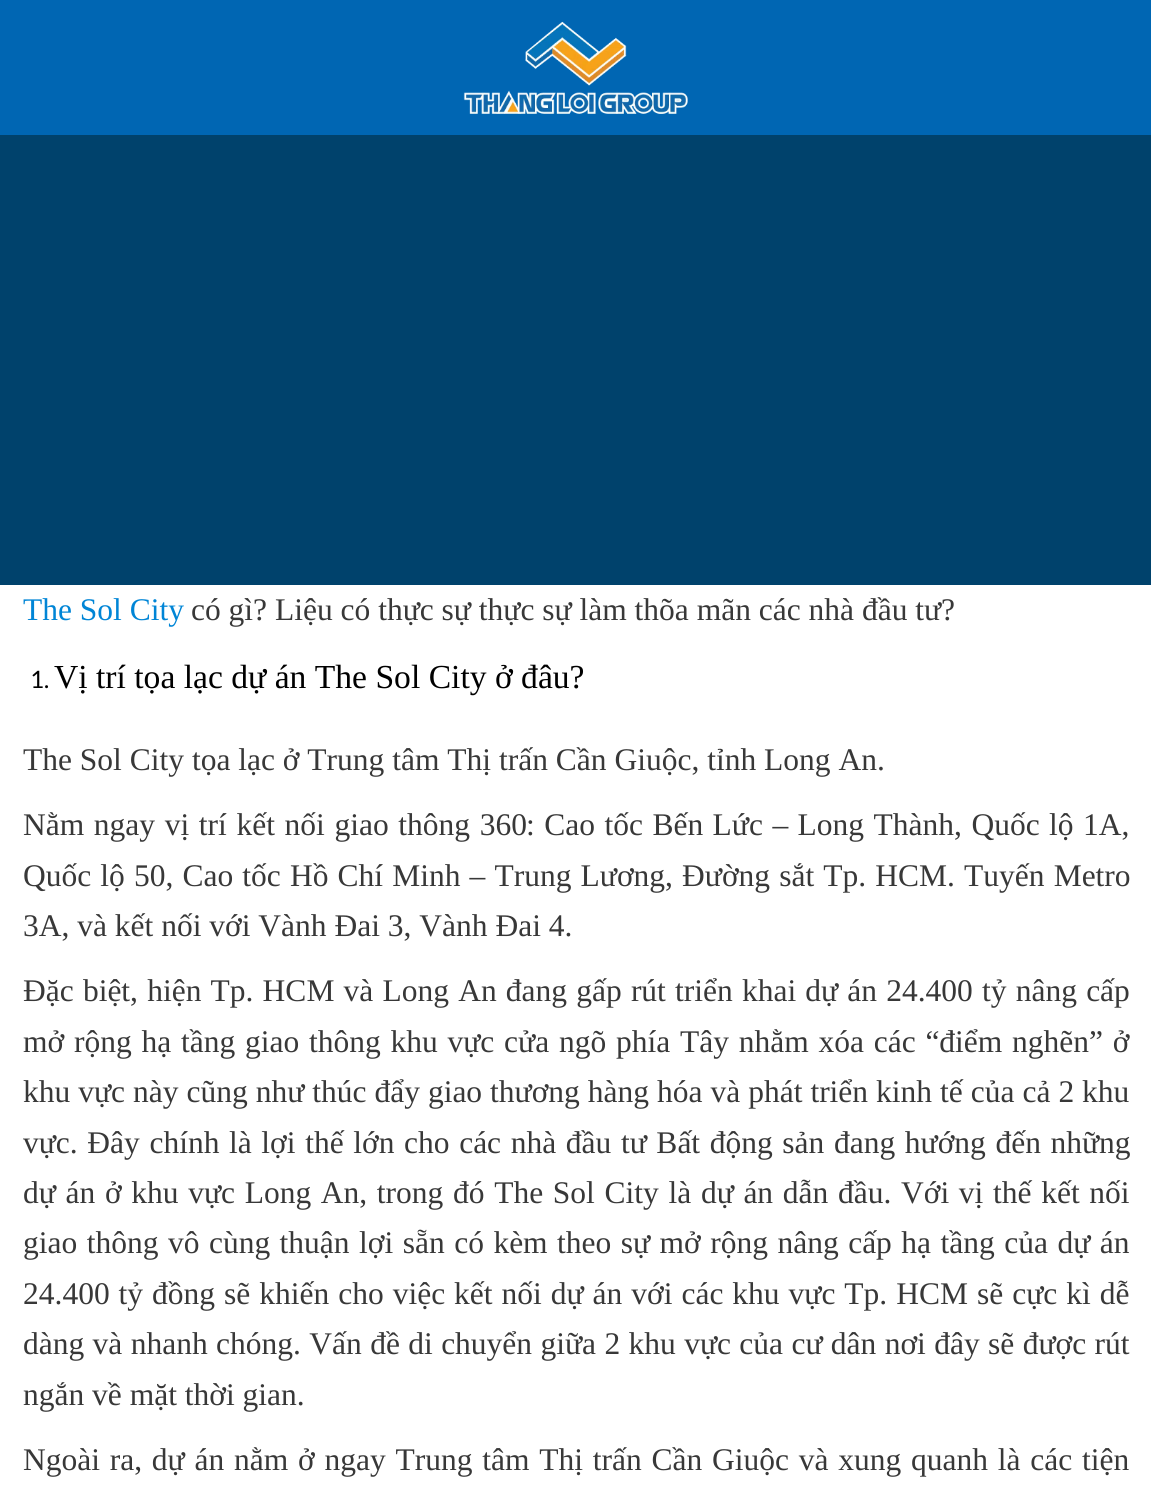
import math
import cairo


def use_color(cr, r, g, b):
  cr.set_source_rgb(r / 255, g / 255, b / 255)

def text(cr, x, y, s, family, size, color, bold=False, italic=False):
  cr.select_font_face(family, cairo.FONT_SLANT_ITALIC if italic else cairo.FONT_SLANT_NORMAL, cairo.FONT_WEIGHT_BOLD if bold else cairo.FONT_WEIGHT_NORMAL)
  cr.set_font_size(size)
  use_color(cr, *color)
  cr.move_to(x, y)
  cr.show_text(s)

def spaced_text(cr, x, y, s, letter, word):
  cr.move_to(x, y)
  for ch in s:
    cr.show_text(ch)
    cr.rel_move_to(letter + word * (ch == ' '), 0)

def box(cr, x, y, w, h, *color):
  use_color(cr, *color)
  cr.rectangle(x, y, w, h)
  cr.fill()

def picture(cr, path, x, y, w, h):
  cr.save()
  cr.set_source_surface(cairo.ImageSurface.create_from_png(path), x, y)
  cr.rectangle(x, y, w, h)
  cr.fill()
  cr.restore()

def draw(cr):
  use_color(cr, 255, 255, 255)
  cr.paint()
  box(cr, 0, 0, 1151, 135, 0, 102, 179)
  picture(cr, "img_01.png", 463, 21, 225, 93)
  box(cr, 0, 135, 1151, 450, 0, 66, 108)
  text(cr, 23, 620, "The Sol City", "Liberation Serif", 31.5, (0, 133, 214))
  text(cr, 191, 620, "có gì? Liệu có thực sự thực sự làm thõa mãn các nhà đầu tư?", "Liberation Serif", 31.5, (56, 56, 56))
  text(cr, 30, 688, "1.", "Lato", 24, (0, 0, 0))
  text(cr, 54, 688, "Vị trí tọa lạc dự án The Sol City ở đâu?", "Liberation Serif", 33.6, (0, 0, 0))
  text(cr, 23, 770, "The Sol City tọa lạc ở Trung tâm Thị trấn Cần Giuộc, tỉnh Long An.", "Liberation Serif", 31.5, (56, 56, 56))
  spaced_text(cr, 23, 835, "Nằm ngay vị trí kết nối giao thông 360", 0, 1.75)
  spaced_text(cr, 526, 835, ": Cao tốc Bến Lức – Long Thành, Quốc lộ 1A,", 0, 1.6)
  spaced_text(cr, 23, 886, "Quốc lộ 50, Cao tốc Hồ Chí Minh – Trung Lương, Đường sắt Tp. HCM. Tuyến Metro", 0, 1.25)
  text(cr, 23, 936, "3A, và kết nối với Vành Đai 3, Vành Đai 4.", "Liberation Serif", 31.5, (56, 56, 56))
  spaced_text(cr, 23, 1001, "Đặc biệt, hiện Tp. HCM và Long An đang gấp rút triển khai dự án 24.400 tỷ nâng cấp", 0, 1.3)
  spaced_text(cr, 23, 1052, "mở rộng hạ tầng giao thông khu vực cửa ngõ phía Tây nhằm xóa các “điểm nghẽn” ở", 0, 1.9)
  spaced_text(cr, 23, 1102, "khu vực này cũng như thúc đẩy giao thương hàng hóa và phát triển kinh tế của cả 2 khu", 0, 0.1)
  spaced_text(cr, 23, 1153, "vực. Đây chính là lợi thế lớn cho các nhà đầu tư Bất động sản đang hướng đến những", 0, 1.75)
  spaced_text(cr, 23, 1203, "dự án ở khu vực Long An, trong đó The Sol City là dự án dẫn đầu. Với vị thế kết nối", 0, 1.8)
  spaced_text(cr, 23, 1253, "giao thông vô cùng thuận lợi sẵn có kèm theo sự mở rộng nâng cấp hạ tầng của dự án", 0, 1.6)
  spaced_text(cr, 23, 1304, "24.400 tỷ đồng sẽ khiến cho việc kết nối dự án với các khu vực Tp. HCM sẽ cực kì dễ", 0, 1.1)
  spaced_text(cr, 23, 1354, "dàng và nhanh chóng. Vấn đề di chuyển giữa 2 khu vực của cư dân nơi đây sẽ được rút", 0, 0.5)
  text(cr, 23, 1405, "ngắn về mặt thời gian.", "Liberation Serif", 31.5, (56, 56, 56))
  spaced_text(cr, 23, 1470, "Ngoài ra, dự án nằm ở ngay Trung tâm Thị trấn Cần Giuộc và xung quanh là các tiện", 0, 1.9)


surface = cairo.ImageSurface(cairo.FORMAT_RGB24, 1151, 1494)
cr = cairo.Context(surface)
options = cairo.FontOptions()
options.set_hint_metrics(cairo.HINT_METRICS_OFF)
options.set_hint_style(cairo.HINT_STYLE_NONE)
cr.set_font_options(options)
cr.set_miter_limit(4)
draw(cr)
surface.write_to_png("out.png")
